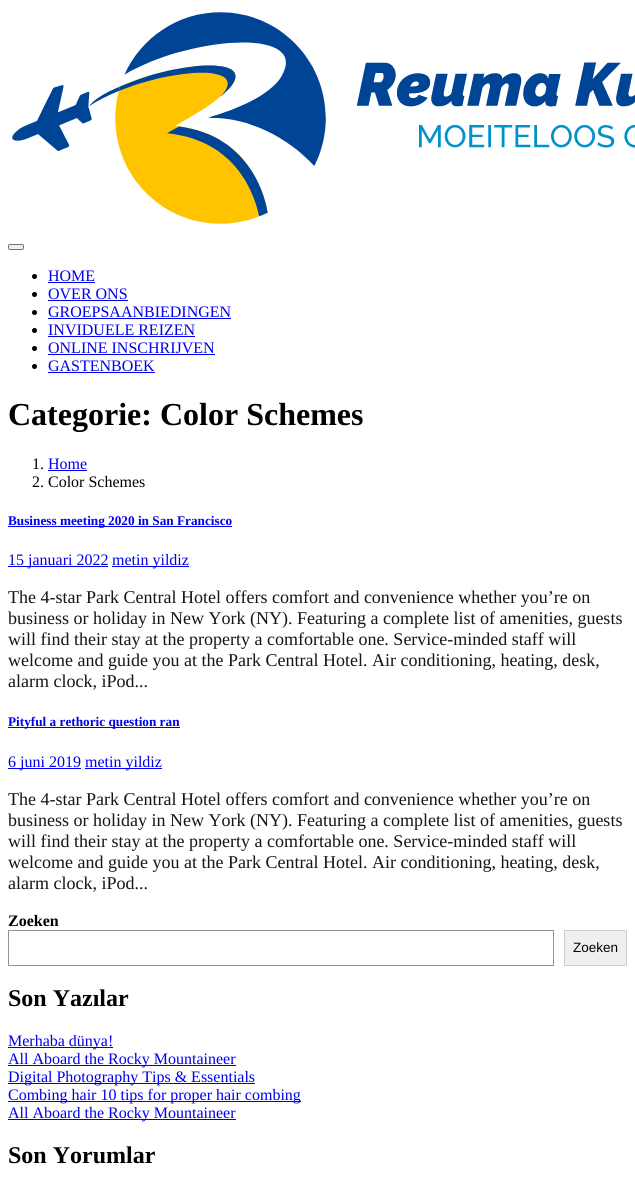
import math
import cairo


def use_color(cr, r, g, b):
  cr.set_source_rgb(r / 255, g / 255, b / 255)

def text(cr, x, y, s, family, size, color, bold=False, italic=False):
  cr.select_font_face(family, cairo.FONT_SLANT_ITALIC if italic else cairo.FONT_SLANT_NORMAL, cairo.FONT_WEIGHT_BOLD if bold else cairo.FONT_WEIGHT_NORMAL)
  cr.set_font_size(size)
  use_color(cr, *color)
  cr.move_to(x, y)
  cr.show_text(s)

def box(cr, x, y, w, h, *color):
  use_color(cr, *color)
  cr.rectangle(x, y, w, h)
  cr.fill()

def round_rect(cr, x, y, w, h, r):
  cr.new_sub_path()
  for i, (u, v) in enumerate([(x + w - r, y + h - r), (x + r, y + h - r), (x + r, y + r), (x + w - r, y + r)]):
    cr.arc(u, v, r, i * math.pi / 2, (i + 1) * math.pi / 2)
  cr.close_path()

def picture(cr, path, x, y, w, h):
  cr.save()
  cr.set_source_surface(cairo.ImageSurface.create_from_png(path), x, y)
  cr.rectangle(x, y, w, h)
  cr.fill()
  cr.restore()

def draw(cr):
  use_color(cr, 255, 255, 255)
  cr.paint()
  picture(cr, "img_01.png", 12, 12, 623, 212)
  use_color(cr, 239, 239, 239)
  round_rect(cr, 8.5, 244.5, 15, 5, 1.5)
  cr.fill_preserve()
  use_color(cr, 118, 118, 118)
  cr.set_line_width(1)
  cr.stroke()
  use_color(cr, 0, 0, 0)
  cr.arc(34.5, 276.5, 2.5, 0, 2 * math.pi)
  cr.fill()
  box(cr, 48, 282, 47, 1, 0, 0, 238)
  use_color(cr, 0, 0, 0)
  cr.arc(34.5, 294.5, 2.5, 0, 2 * math.pi)
  cr.fill()
  box(cr, 48, 300, 80, 1, 0, 0, 238)
  use_color(cr, 0, 0, 0)
  cr.arc(34.5, 312.5, 2.5, 0, 2 * math.pi)
  cr.fill()
  box(cr, 48, 318, 183, 1, 0, 0, 238)
  use_color(cr, 0, 0, 0)
  cr.arc(34.5, 330.5, 2.5, 0, 2 * math.pi)
  cr.fill()
  box(cr, 48, 336, 147, 1, 0, 0, 238)
  use_color(cr, 0, 0, 0)
  cr.arc(34.5, 348.5, 2.5, 0, 2 * math.pi)
  cr.fill()
  box(cr, 48, 354, 167, 1, 0, 0, 238)
  use_color(cr, 0, 0, 0)
  cr.arc(34.5, 366.5, 2.5, 0, 2 * math.pi)
  cr.fill()
  box(cr, 48, 372, 107, 1, 0, 0, 238)
  box(cr, 48, 470, 39, 1, 0, 0, 238)
  box(cr, 8, 526, 224, 1, 0, 0, 238)
  box(cr, 8, 566, 100, 1, 0, 0, 238)
  box(cr, 112, 566, 77, 1, 0, 0, 238)
  box(cr, 8, 727, 172, 1, 0, 0, 238)
  box(cr, 8, 768, 73, 1, 0, 0, 238)
  box(cr, 85, 768, 77, 1, 0, 0, 238)
  cr.rectangle(8.5, 930.5, 545, 35)
  use_color(cr, 148, 148, 148)
  cr.stroke()
  use_color(cr, 239, 239, 239)
  cr.rectangle(564.5, 930.5, 62, 35)
  cr.fill_preserve()
  use_color(cr, 204, 204, 204)
  cr.stroke()
  box(cr, 8, 1047, 105, 1, 0, 0, 238)
  box(cr, 8, 1065, 228, 1, 0, 0, 238)
  box(cr, 8, 1083, 247, 1, 0, 0, 238)
  box(cr, 8, 1101, 293, 1, 0, 0, 238)
  box(cr, 8, 1119, 228, 1, 0, 0, 238)
  text(cr, 48, 281, "HOME", "Liberation Serif", 16, (0, 0, 238))
  text(cr, 48, 299, "OVER ONS", "Liberation Serif", 16, (0, 0, 238))
  text(cr, 48, 317, "GROEPSAANBIEDINGEN", "Liberation Serif", 16, (0, 0, 238))
  text(cr, 48, 335, "INVIDUELE REIZEN", "Liberation Serif", 16, (0, 0, 238))
  text(cr, 48, 353, "ONLINE INSCHRIJVEN", "Liberation Serif", 16, (0, 0, 238))
  text(cr, 48, 371, "GASTENBOEK", "Liberation Serif", 16, (0, 0, 238))
  text(cr, 8, 425, "Categorie: Color Schemes", "Liberation Serif", 32, (0, 0, 0), bold=True)
  text(cr, 32, 469, "1.", "Liberation Serif", 16, (0, 0, 0))
  text(cr, 48, 469, "Home", "Liberation Serif", 16, (0, 0, 238))
  text(cr, 32, 487, "2. Color Schemes", "Liberation Serif", 16, (0, 0, 0))
  text(cr, 8, 525, "Business meeting 2020 in San Francisco", "Liberation Serif", 13.25, (0, 0, 238), bold=True)
  text(cr, 8, 565, "15 januari 2022", "Liberation Serif", 16, (0, 0, 238))
  text(cr, 112, 565, "metin yildiz", "Liberation Serif", 16, (0, 0, 238))
  text(cr, 8, 603, "The 4-star Park Central Hotel offers comfort and convenience whether you’re on", "Liberation Serif", 18, (20, 21, 22))
  text(cr, 8, 624, "business or holiday in New York (NY). Featuring a complete list of amenities, guests", "Liberation Serif", 18, (20, 21, 22))
  text(cr, 8, 645, "will find their stay at the property a comfortable one. Service-minded staff will", "Liberation Serif", 18, (20, 21, 22))
  text(cr, 8, 666, "welcome and guide you at the Park Central Hotel. Air conditioning, heating, desk,", "Liberation Serif", 18, (20, 21, 22))
  text(cr, 8, 687, "alarm clock, iPod...", "Liberation Serif", 18, (20, 21, 22))
  text(cr, 8, 726, "Pityful a rethoric question ran", "Liberation Serif", 13.25, (0, 0, 238), bold=True)
  text(cr, 8, 767, "6 juni 2019", "Liberation Serif", 16, (0, 0, 238))
  text(cr, 85, 767, "metin yildiz", "Liberation Serif", 16, (0, 0, 238))
  text(cr, 8, 805, "The 4-star Park Central Hotel offers comfort and convenience whether you’re on", "Liberation Serif", 18, (20, 21, 22))
  text(cr, 8, 826, "business or holiday in New York (NY). Featuring a complete list of amenities, guests", "Liberation Serif", 18, (20, 21, 22))
  text(cr, 8, 847, "will find their stay at the property a comfortable one. Service-minded staff will", "Liberation Serif", 18, (20, 21, 22))
  text(cr, 8, 868, "welcome and guide you at the Park Central Hotel. Air conditioning, heating, desk,", "Liberation Serif", 18, (20, 21, 22))
  text(cr, 8, 889, "alarm clock, iPod...", "Liberation Serif", 18, (20, 21, 22))
  text(cr, 8, 926, "Zoeken", "Liberation Serif", 16, (0, 0, 0), bold=True)
  text(cr, 573, 952, "Zoeken", "Liberation Sans", 13.5, (0, 0, 0))
  text(cr, 8, 1006, "Son Yazılar", "Liberation Serif", 24, (0, 0, 0), bold=True)
  text(cr, 8, 1046, "Merhaba dünya!", "Liberation Serif", 16, (0, 0, 238))
  text(cr, 8, 1064, "All Aboard the Rocky Mountaineer", "Liberation Serif", 16, (0, 0, 238))
  text(cr, 8, 1082, "Digital Photography Tips & Essentials", "Liberation Serif", 16, (0, 0, 238))
  text(cr, 8, 1100, "Combing hair 10 tips for proper hair combing", "Liberation Serif", 16, (0, 0, 238))
  text(cr, 8, 1118, "All Aboard the Rocky Mountaineer", "Liberation Serif", 16, (0, 0, 238))
  text(cr, 8, 1163, "Son Yorumlar", "Liberation Serif", 24, (0, 0, 0), bold=True)


surface = cairo.ImageSurface(cairo.FORMAT_RGB24, 635, 1185)
cr = cairo.Context(surface)
options = cairo.FontOptions()
options.set_hint_metrics(cairo.HINT_METRICS_OFF)
options.set_hint_style(cairo.HINT_STYLE_NONE)
cr.set_font_options(options)
cr.set_miter_limit(4)
draw(cr)
surface.write_to_png("out.png")
